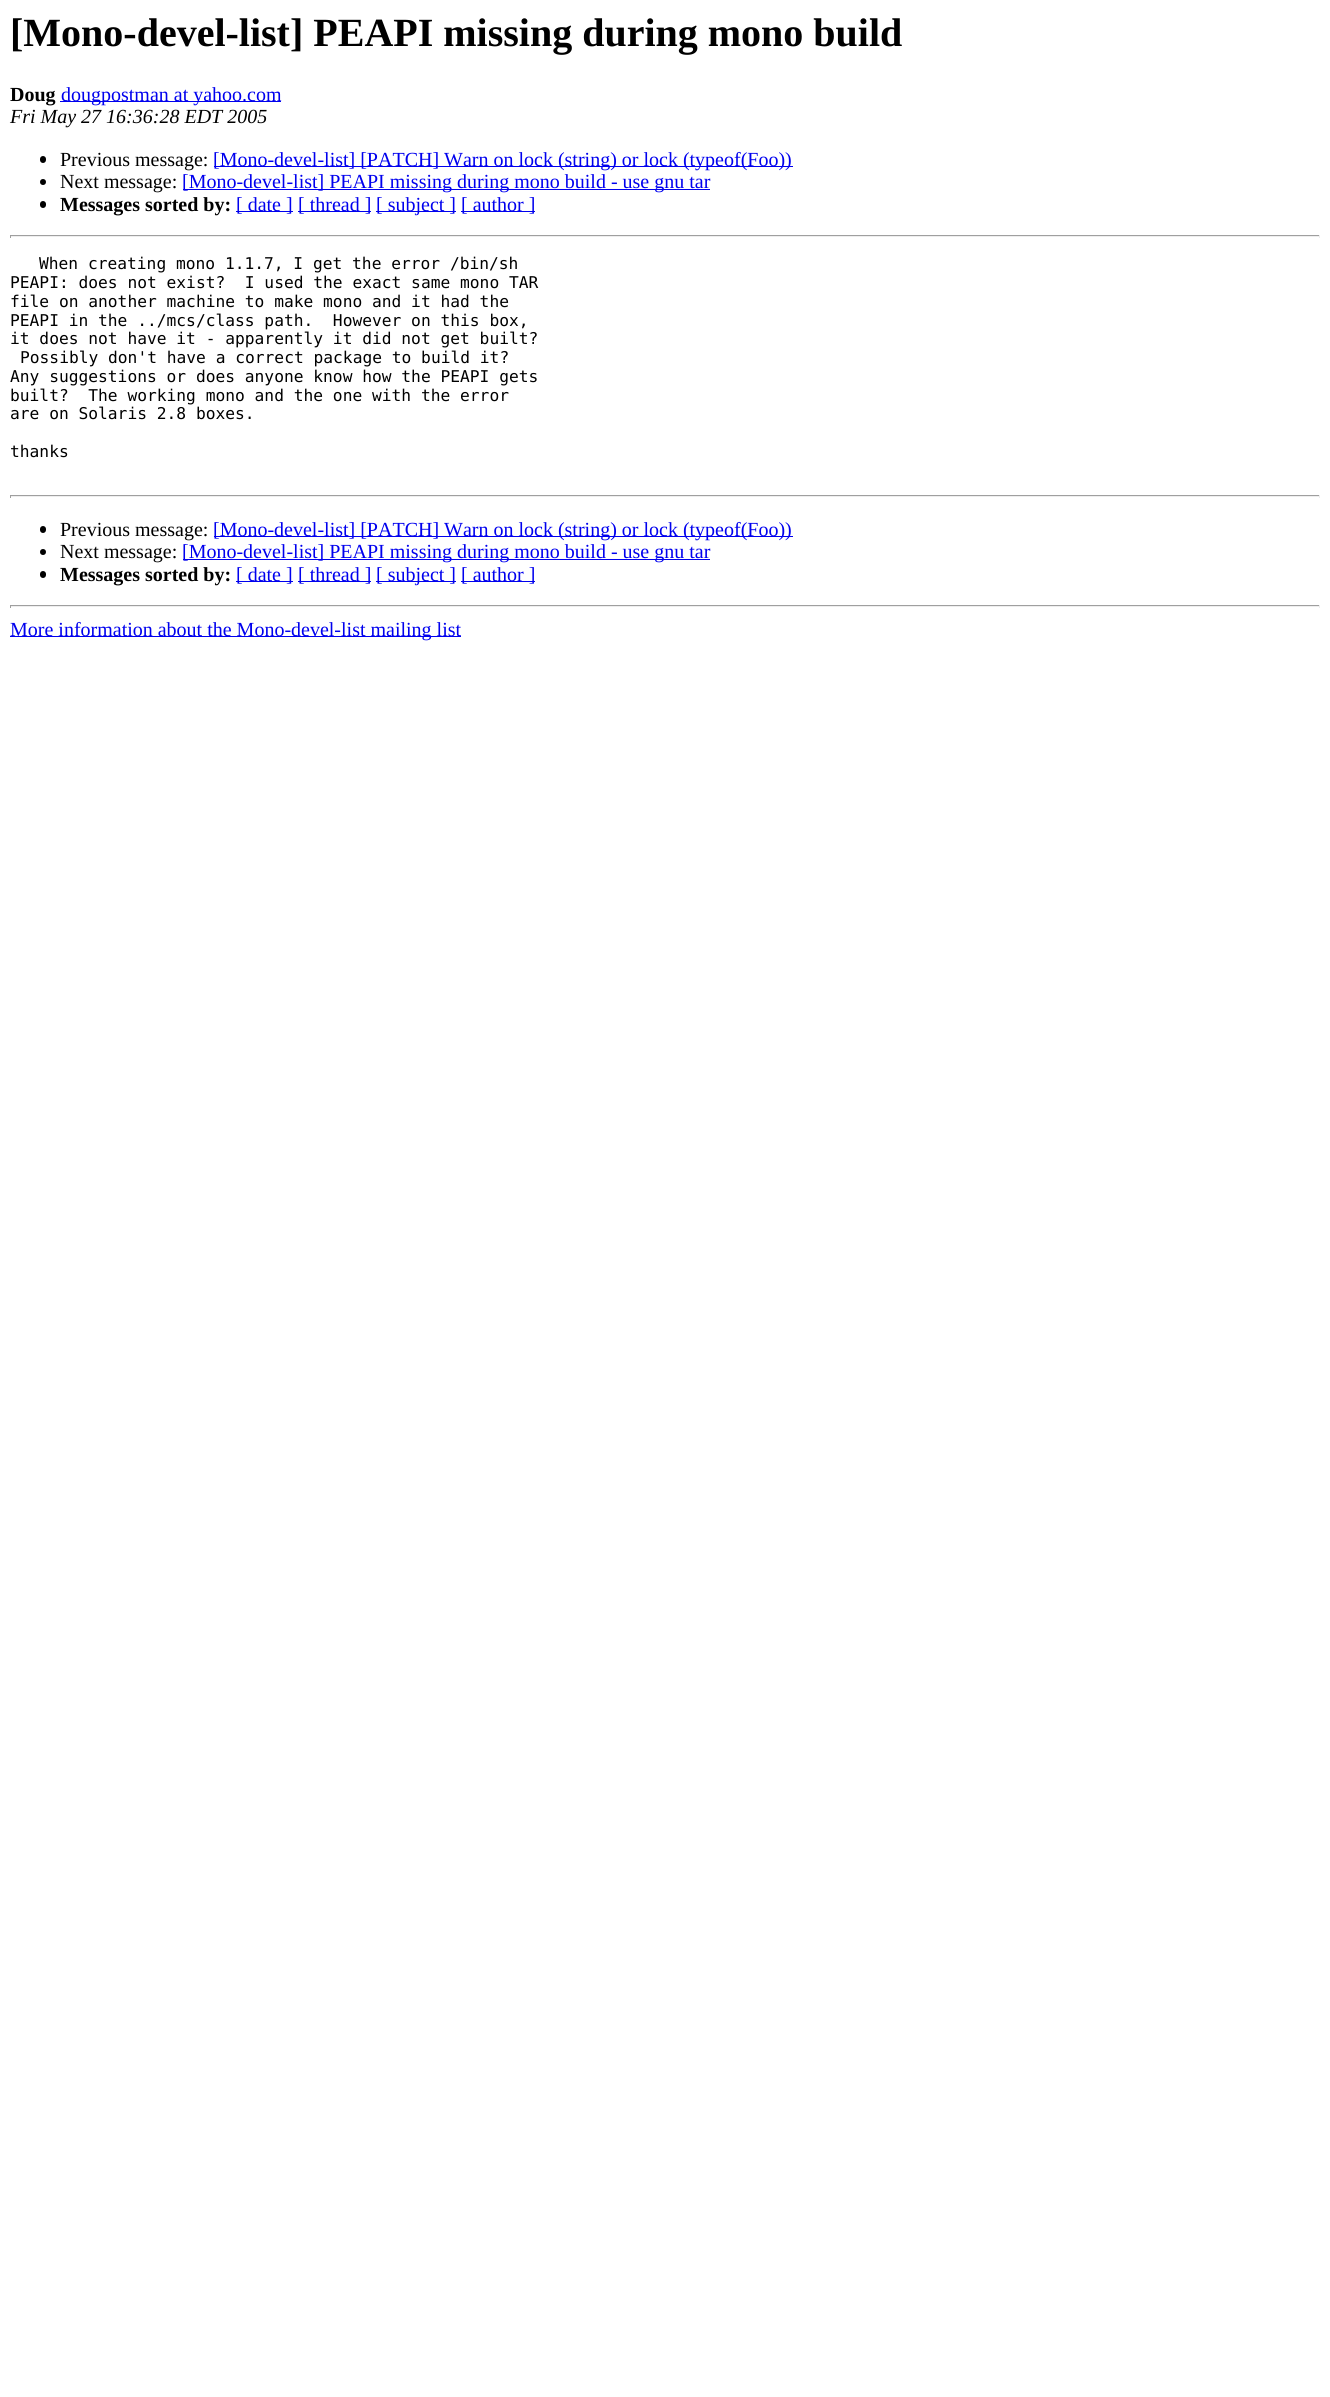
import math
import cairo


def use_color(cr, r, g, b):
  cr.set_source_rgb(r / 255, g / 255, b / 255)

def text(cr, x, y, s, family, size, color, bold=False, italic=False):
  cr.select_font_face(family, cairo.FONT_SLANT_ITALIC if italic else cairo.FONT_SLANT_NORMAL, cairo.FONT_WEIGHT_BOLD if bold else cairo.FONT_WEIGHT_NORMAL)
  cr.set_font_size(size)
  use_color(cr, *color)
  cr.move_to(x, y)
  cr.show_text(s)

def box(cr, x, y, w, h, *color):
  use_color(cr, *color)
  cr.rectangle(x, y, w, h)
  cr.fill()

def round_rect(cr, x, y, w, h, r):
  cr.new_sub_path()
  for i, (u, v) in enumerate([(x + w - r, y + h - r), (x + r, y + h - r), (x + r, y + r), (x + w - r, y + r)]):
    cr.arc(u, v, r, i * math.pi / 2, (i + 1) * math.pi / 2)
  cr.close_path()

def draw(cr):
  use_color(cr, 255, 255, 255)
  cr.paint()
  box(cr, 60, 101, 221, 1, 0, 0, 238)
  use_color(cr, 0, 0, 0)
  round_rect(cr, 40, 156, 6, 7, 3)
  cr.fill()
  box(cr, 214, 166, 579, 1, 0, 0, 238)
  use_color(cr, 0, 0, 0)
  cr.arc(43, 182, 3, 0, 2 * math.pi)
  cr.fill()
  box(cr, 183, 189, 527, 1, 0, 0, 238)
  use_color(cr, 0, 0, 0)
  round_rect(cr, 40, 201, 6, 7, 3)
  cr.fill()
  box(cr, 236, 211, 57, 1, 0, 0, 238)
  box(cr, 298, 211, 73, 1, 0, 0, 238)
  box(cr, 376, 211, 80, 1, 0, 0, 238)
  box(cr, 461, 211, 74, 1, 0, 0, 238)
  box(cr, 10, 235, 1310, 1, 159, 159, 159)
  box(cr, 1319, 235, 1, 3, 238, 238, 238)
  box(cr, 10, 236, 1310, 1, 238, 238, 238)
  box(cr, 10, 235, 1, 3, 159, 159, 159)
  box(cr, 10, 495, 1310, 1, 159, 159, 159)
  box(cr, 1319, 495, 1, 3, 238, 238, 238)
  box(cr, 10, 496, 1310, 1, 238, 238, 238)
  box(cr, 10, 495, 1, 3, 159, 159, 159)
  use_color(cr, 0, 0, 0)
  round_rect(cr, 40, 526, 6, 7, 3)
  cr.fill()
  box(cr, 214, 536, 579, 1, 0, 0, 238)
  use_color(cr, 0, 0, 0)
  cr.arc(43, 552, 3, 0, 2 * math.pi)
  cr.fill()
  box(cr, 183, 559, 527, 1, 0, 0, 238)
  use_color(cr, 0, 0, 0)
  round_rect(cr, 40, 571, 6, 7, 3)
  cr.fill()
  box(cr, 236, 581, 57, 1, 0, 0, 238)
  box(cr, 298, 581, 73, 1, 0, 0, 238)
  box(cr, 376, 581, 80, 1, 0, 0, 238)
  box(cr, 461, 581, 74, 1, 0, 0, 238)
  box(cr, 10, 605, 1310, 1, 159, 159, 159)
  box(cr, 1319, 605, 1, 3, 238, 238, 238)
  box(cr, 10, 606, 1310, 1, 238, 238, 238)
  box(cr, 10, 605, 1, 3, 159, 159, 159)
  box(cr, 10, 636, 451, 1, 0, 0, 238)
  text(cr, 10, 46, "[Mono-devel-list] PEAPI missing during mono build", "Liberation Serif", 40, (0, 0, 0), bold=True)
  text(cr, 10, 101, "Doug", "Liberation Serif", 20, (0, 0, 0), bold=True)
  text(cr, 61, 101, "dougpostman at yahoo.com", "Liberation Serif", 20, (0, 0, 238))
  text(cr, 10, 123, "Fri May 27 16:36:28 EDT 2005", "Liberation Serif", 20, (0, 0, 0), italic=True)
  text(cr, 60, 166, "Previous message:", "Liberation Serif", 20, (0, 0, 0))
  text(cr, 213, 166, "[Mono-devel-list] [PATCH] Warn on lock (string) or lock (typeof(Foo))", "Liberation Serif", 20, (0, 0, 238))
  text(cr, 60, 188, "Next message:", "Liberation Serif", 20, (0, 0, 0))
  text(cr, 182, 188, "[Mono-devel-list] PEAPI missing during mono build - use gnu tar", "Liberation Serif", 20, (0, 0, 238))
  text(cr, 60, 211, "Messages sorted by:", "Liberation Serif", 20, (0, 0, 0), bold=True)
  text(cr, 236, 211, "[ date ]", "Liberation Serif", 20, (0, 0, 238))
  text(cr, 298, 211, "[ thread ]", "Liberation Serif", 20, (0, 0, 238))
  text(cr, 376, 211, "[ subject ]", "Liberation Serif", 20, (0, 0, 238))
  text(cr, 461, 211, "[ author ]", "Liberation Serif", 20, (0, 0, 238))
  text(cr, 39, 269, "When creating mono 1.1.7, I get the error /bin/sh", "DejaVu Sans Mono", 16.25, (0, 0, 0))
  text(cr, 10, 288, "PEAPI: does not exist?  I used the exact same mono TAR", "DejaVu Sans Mono", 16.25, (0, 0, 0))
  text(cr, 10, 307, "file on another machine to make mono and it had the", "DejaVu Sans Mono", 16.25, (0, 0, 0))
  text(cr, 10, 326, "PEAPI in the ../mcs/class path.  However on this box,", "DejaVu Sans Mono", 16.25, (0, 0, 0))
  text(cr, 10, 344, "it does not have it - apparently it did not get built?", "DejaVu Sans Mono", 16.25, (0, 0, 0))
  text(cr, 20, 363, "Possibly don't have a correct package to build it?", "DejaVu Sans Mono", 16.25, (0, 0, 0))
  text(cr, 10, 382, "Any suggestions or does anyone know how the PEAPI gets", "DejaVu Sans Mono", 16.25, (0, 0, 0))
  text(cr, 10, 401, "built?  The working mono and the one with the error", "DejaVu Sans Mono", 16.25, (0, 0, 0))
  text(cr, 10, 419, "are on Solaris 2.8 boxes.", "DejaVu Sans Mono", 16.25, (0, 0, 0))
  text(cr, 10, 457, "thanks", "DejaVu Sans Mono", 16.25, (0, 0, 0))
  text(cr, 60, 536, "Previous message:", "Liberation Serif", 20, (0, 0, 0))
  text(cr, 213, 536, "[Mono-devel-list] [PATCH] Warn on lock (string) or lock (typeof(Foo))", "Liberation Serif", 20, (0, 0, 238))
  text(cr, 60, 558, "Next message:", "Liberation Serif", 20, (0, 0, 0))
  text(cr, 182, 558, "[Mono-devel-list] PEAPI missing during mono build - use gnu tar", "Liberation Serif", 20, (0, 0, 238))
  text(cr, 60, 581, "Messages sorted by:", "Liberation Serif", 20, (0, 0, 0), bold=True)
  text(cr, 236, 581, "[ date ]", "Liberation Serif", 20, (0, 0, 238))
  text(cr, 298, 581, "[ thread ]", "Liberation Serif", 20, (0, 0, 238))
  text(cr, 376, 581, "[ subject ]", "Liberation Serif", 20, (0, 0, 238))
  text(cr, 461, 581, "[ author ]", "Liberation Serif", 20, (0, 0, 238))
  text(cr, 10, 636, "More information about the Mono-devel-list mailing list", "Liberation Serif", 20, (0, 0, 238))


surface = cairo.ImageSurface(cairo.FORMAT_RGB24, 1330, 2397)
cr = cairo.Context(surface)
options = cairo.FontOptions()
options.set_hint_metrics(cairo.HINT_METRICS_OFF)
options.set_hint_style(cairo.HINT_STYLE_NONE)
cr.set_font_options(options)
cr.set_miter_limit(4)
draw(cr)
surface.write_to_png("out.png")
